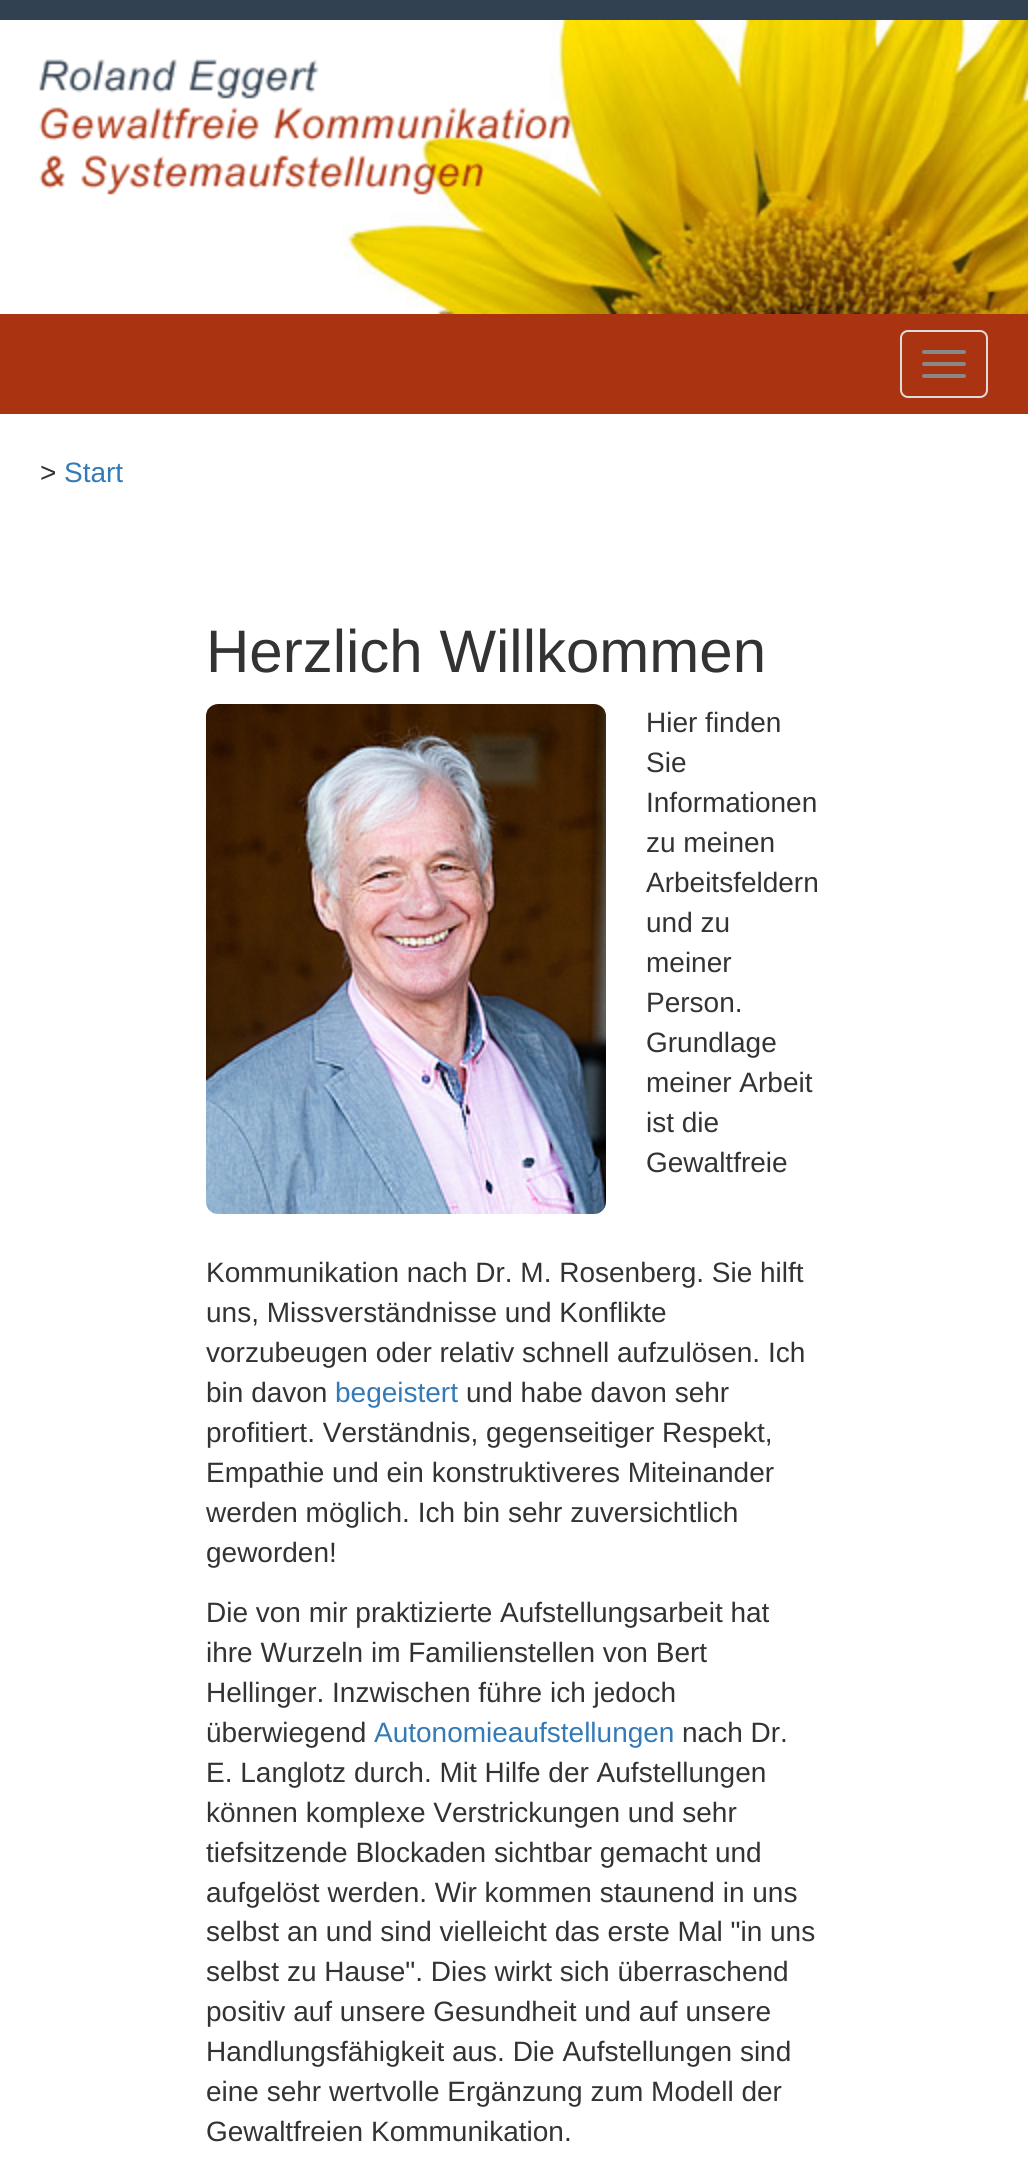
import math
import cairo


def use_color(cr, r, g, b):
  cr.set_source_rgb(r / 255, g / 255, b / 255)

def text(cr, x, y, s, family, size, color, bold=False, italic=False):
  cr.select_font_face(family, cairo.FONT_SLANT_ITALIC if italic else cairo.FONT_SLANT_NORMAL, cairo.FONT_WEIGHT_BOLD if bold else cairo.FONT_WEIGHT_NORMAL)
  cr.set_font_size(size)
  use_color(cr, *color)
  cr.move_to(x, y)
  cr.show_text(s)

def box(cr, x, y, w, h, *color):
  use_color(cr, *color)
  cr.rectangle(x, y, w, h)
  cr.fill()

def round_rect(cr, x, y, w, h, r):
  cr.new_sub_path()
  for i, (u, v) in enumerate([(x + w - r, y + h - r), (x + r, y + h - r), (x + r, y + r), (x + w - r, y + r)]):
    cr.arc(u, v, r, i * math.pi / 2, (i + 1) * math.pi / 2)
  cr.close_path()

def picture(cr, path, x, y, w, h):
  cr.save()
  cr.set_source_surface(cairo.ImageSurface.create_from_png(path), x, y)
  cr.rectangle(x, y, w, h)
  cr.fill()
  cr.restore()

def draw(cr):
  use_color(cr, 49, 65, 81)
  cr.paint()
  box(cr, 0, 20, 342, 294, 255, 255, 255)
  picture(cr, "img_01.png", 342, 20, 686, 294)
  picture(cr, "img_02.png", 39, 59, 532, 136)
  box(cr, 0, 314, 1028, 100, 170, 51, 17)
  round_rect(cr, 901, 331, 86, 66, 7)
  use_color(cr, 221, 221, 221)
  cr.stroke()
  use_color(cr, 136, 136, 136)
  round_rect(cr, 922, 350, 44, 4, 2)
  cr.fill()
  round_rect(cr, 922, 362, 44, 4, 2)
  cr.fill()
  round_rect(cr, 922, 374, 44, 4, 2)
  cr.fill()
  box(cr, 0, 414, 1028, 1756, 255, 255, 255)
  picture(cr, "img_03.png", 206, 704, 400, 510)
  text(cr, 40, 482, ">", "Liberation Sans", 28, (51, 51, 51))
  text(cr, 64, 482, "Start", "Liberation Sans", 28, (51, 122, 183))
  text(cr, 206, 672, "Herzlich Willkommen", "Liberation Sans", 60, (51, 51, 51))
  text(cr, 646, 732, "Hier finden", "Liberation Sans", 28, (51, 51, 51))
  text(cr, 646, 772, "Sie", "Liberation Sans", 28, (51, 51, 51))
  text(cr, 646, 812, "Informationen", "Liberation Sans", 28, (51, 51, 51))
  text(cr, 646, 852, "zu meinen", "Liberation Sans", 28, (51, 51, 51))
  text(cr, 646, 892, "Arbeitsfeldern", "Liberation Sans", 28, (51, 51, 51))
  text(cr, 646, 932, "und zu", "Liberation Sans", 28, (51, 51, 51))
  text(cr, 646, 972, "meiner", "Liberation Sans", 28, (51, 51, 51))
  text(cr, 646, 1012, "Person.", "Liberation Sans", 28, (51, 51, 51))
  text(cr, 646, 1052, "Grundlage", "Liberation Sans", 28, (51, 51, 51))
  text(cr, 646, 1092, "meiner Arbeit", "Liberation Sans", 28, (51, 51, 51))
  text(cr, 646, 1132, "ist die", "Liberation Sans", 28, (51, 51, 51))
  text(cr, 646, 1172, "Gewaltfreie", "Liberation Sans", 28, (51, 51, 51))
  text(cr, 206, 1282, "Kommunikation nach Dr. M. Rosenberg. Sie hilft", "Liberation Sans", 28, (51, 51, 51))
  text(cr, 206, 1322, "uns, Missverständnisse und Konflikte", "Liberation Sans", 28, (51, 51, 51))
  text(cr, 206, 1362, "vorzubeugen oder relativ schnell aufzulösen. Ich", "Liberation Sans", 28, (51, 51, 51))
  text(cr, 206, 1402, "bin davon", "Liberation Sans", 28, (51, 51, 51))
  text(cr, 335, 1402, "begeistert", "Liberation Sans", 28, (51, 122, 183))
  text(cr, 466, 1402, "und habe davon sehr", "Liberation Sans", 28, (51, 51, 51))
  text(cr, 206, 1442, "profitiert. Verständnis, gegenseitiger Respekt,", "Liberation Sans", 28, (51, 51, 51))
  text(cr, 206, 1482, "Empathie und ein konstruktiveres Miteinander", "Liberation Sans", 28, (51, 51, 51))
  text(cr, 206, 1522, "werden möglich. Ich bin sehr zuversichtlich", "Liberation Sans", 28, (51, 51, 51))
  text(cr, 206, 1562, "geworden!", "Liberation Sans", 28, (51, 51, 51))
  text(cr, 206, 1622, "Die von mir praktizierte Aufstellungsarbeit hat", "Liberation Sans", 28, (51, 51, 51))
  text(cr, 206, 1662, "ihre Wurzeln im Familienstellen von Bert", "Liberation Sans", 28, (51, 51, 51))
  text(cr, 206, 1702, "Hellinger. Inzwischen führe ich jedoch", "Liberation Sans", 28, (51, 51, 51))
  text(cr, 206, 1742, "überwiegend", "Liberation Sans", 28, (51, 51, 51))
  text(cr, 374, 1742, "Autonomieaufstellungen", "Liberation Sans", 28, (51, 122, 183))
  text(cr, 682, 1742, "nach Dr.", "Liberation Sans", 28, (51, 51, 51))
  text(cr, 206, 1782, "E. Langlotz durch. Mit Hilfe der Aufstellungen", "Liberation Sans", 28, (51, 51, 51))
  text(cr, 206, 1822, "können komplexe Verstrickungen und sehr", "Liberation Sans", 28, (51, 51, 51))
  text(cr, 206, 1862, "tiefsitzende Blockaden sichtbar gemacht und", "Liberation Sans", 28, (51, 51, 51))
  text(cr, 206, 1902, "aufgelöst werden. Wir kommen staunend in uns", "Liberation Sans", 28, (51, 51, 51))
  text(cr, 206, 1941, "selbst an und sind vielleicht das erste Mal \"in uns", "Liberation Sans", 28, (51, 51, 51))
  text(cr, 206, 1981, "selbst zu Hause\". Dies wirkt sich überraschend", "Liberation Sans", 28, (51, 51, 51))
  text(cr, 206, 2021, "positiv auf unsere Gesundheit und auf unsere", "Liberation Sans", 28, (51, 51, 51))
  text(cr, 206, 2061, "Handlungsfähigkeit aus. Die Aufstellungen sind", "Liberation Sans", 28, (51, 51, 51))
  text(cr, 206, 2101, "eine sehr wertvolle Ergänzung zum Modell der", "Liberation Sans", 28, (51, 51, 51))
  text(cr, 206, 2141, "Gewaltfreien Kommunikation.", "Liberation Sans", 28, (51, 51, 51))


surface = cairo.ImageSurface(cairo.FORMAT_RGB24, 1028, 2170)
cr = cairo.Context(surface)
options = cairo.FontOptions()
options.set_hint_metrics(cairo.HINT_METRICS_OFF)
options.set_hint_style(cairo.HINT_STYLE_NONE)
cr.set_font_options(options)
cr.set_miter_limit(4)
draw(cr)
surface.write_to_png("out.png")
